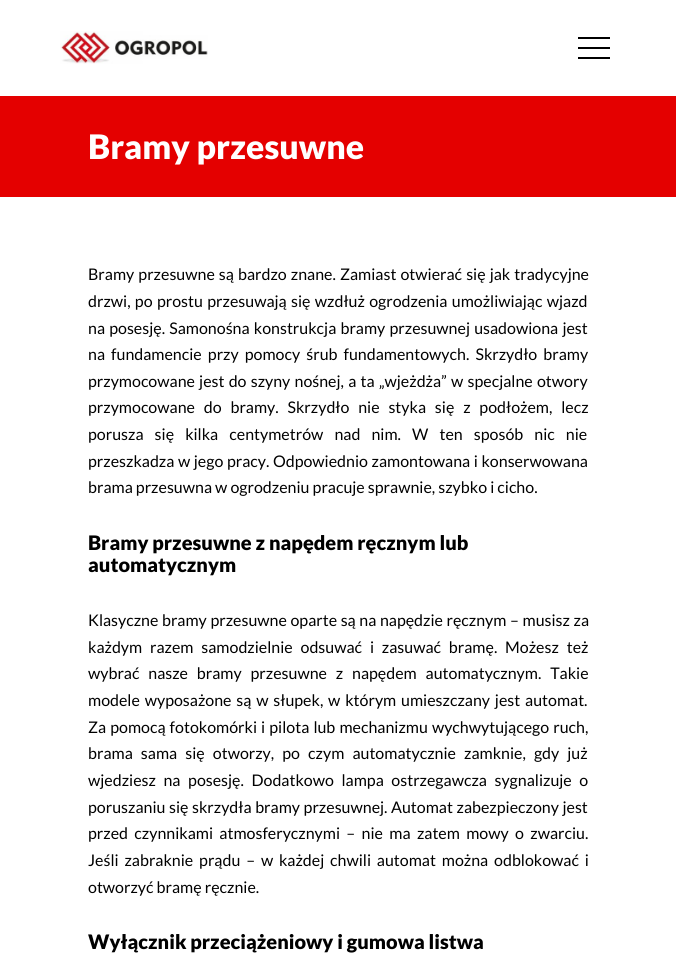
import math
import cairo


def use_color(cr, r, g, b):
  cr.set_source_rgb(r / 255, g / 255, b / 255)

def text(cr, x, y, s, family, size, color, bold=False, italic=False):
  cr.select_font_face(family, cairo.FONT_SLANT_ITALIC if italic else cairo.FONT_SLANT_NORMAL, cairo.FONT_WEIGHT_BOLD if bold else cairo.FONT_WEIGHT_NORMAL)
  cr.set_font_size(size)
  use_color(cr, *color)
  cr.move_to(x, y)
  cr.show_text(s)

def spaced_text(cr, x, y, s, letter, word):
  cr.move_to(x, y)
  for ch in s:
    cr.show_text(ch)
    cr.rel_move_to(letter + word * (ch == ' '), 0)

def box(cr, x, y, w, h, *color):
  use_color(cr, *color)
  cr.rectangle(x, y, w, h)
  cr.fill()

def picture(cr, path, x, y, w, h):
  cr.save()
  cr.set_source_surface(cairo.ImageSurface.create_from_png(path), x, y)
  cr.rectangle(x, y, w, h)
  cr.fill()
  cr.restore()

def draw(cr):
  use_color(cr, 255, 255, 255)
  cr.paint()
  picture(cr, "img_01.png", 60, 31, 148, 33)
  box(cr, 578, 37, 32, 2, 0, 0, 0)
  box(cr, 578, 47, 32, 2, 0, 0, 0)
  box(cr, 578, 57, 32, 2, 0, 0, 0)
  box(cr, 0, 96, 676, 101, 228, 0, 0)
  text(cr, 88, 159, "Bramy przesuwne", "Lato Black", 33.75, (255, 255, 255))
  cr.select_font_face("Lato")
  cr.set_font_size(16)
  use_color(cr, 0, 0, 0)
  spaced_text(cr, 88, 280, "Bramy przesuwne są bardzo znane. Zamiast otwierać się jak tradycyjne", 0, 1)
  spaced_text(cr, 88, 307, "drzwi, po prostu przesuwają się wzdłuż ogrodzenia umożliwiając wjazd", 0, 1.25)
  spaced_text(cr, 88, 334, "na posesję. Samonośna konstrukcja bramy przesuwnej usadowiona jest", 0, 1.1)
  spaced_text(cr, 88, 360, "na fundamencie przy pomocy śrub fundamentowych. Skrzydło bramy", 0, 3)
  spaced_text(cr, 88, 387, "przymocowane jest do szyny nośnej, a ta „wjeżdża” w specjalne otwory", 0, 1.1)
  spaced_text(cr, 88, 413, "przymocowane do bramy. Skrzydło nie styka się z podłożem, lecz", 0, 5.75)
  spaced_text(cr, 88, 440, "porusza się kilka centymetrów nad nim. W ten sposób nic nie", 0, 8)
  spaced_text(cr, 88, 467, "przeszkadza w jego pracy. Odpowiednio zamontowana i konserwowana", 0, 0.5)
  text(cr, 88, 493, "brama przesuwna w ogrodzeniu pracuje sprawnie, szybko i cicho.", "Lato", 16, (0, 0, 0))
  text(cr, 88, 550, "Bramy przesuwne z napędem ręcznym lub", "Lato Black", 20, (0, 0, 0))
  text(cr, 88, 572, "automatycznym", "Lato Black", 20, (0, 0, 0))
  cr.select_font_face("Lato")
  cr.set_font_size(16)
  spaced_text(cr, 88, 626, "Klasyczne bramy przesuwne oparte są na napędzie ręcznym – musisz za", 0, 0.5)
  spaced_text(cr, 88, 653, "każdym razem samodzielnie odsuwać i zasuwać bramę. Możesz też", 0, 4.75)
  spaced_text(cr, 88, 679, "wybrać nasze bramy przesuwne z napędem automatycznym. Takie", 0, 5.75)
  spaced_text(cr, 88, 706, "modele wyposażone są w słupek, w którym umieszczany jest automat.", 0, 1.75)
  spaced_text(cr, 88, 733, "Za pomocą fotokomórki i pilota lub mechanizmu wychwytującego ruch,", 0, 1)
  spaced_text(cr, 88, 759, "brama sama się otworzy, po czym automatycznie zamknie, gdy już", 0, 5)
  spaced_text(cr, 88, 786, "wjedziesz na posesję. Dodatkowo lampa ostrzegawcza sygnalizuje o", 0, 4.5)
  spaced_text(cr, 88, 813, "poruszaniu się skrzydła bramy przesuwnej. Automat zabezpieczony jest", 0, 0.5)
  spaced_text(cr, 88, 839, "przed czynnikami atmosferycznymi – nie ma zatem mowy o zwarciu.", 0, 3.25)
  spaced_text(cr, 88, 866, "Jeśli zabraknie prądu – w każdej chwili automat można odblokować i", 0, 2.75)
  text(cr, 88, 893, "otworzyć bramę ręcznie.", "Lato", 16, (0, 0, 0))
  text(cr, 88, 949, "Wyłącznik przeciążeniowy i gumowa listwa", "Lato Black", 20, (0, 0, 0))


surface = cairo.ImageSurface(cairo.FORMAT_RGB24, 676, 967)
cr = cairo.Context(surface)
options = cairo.FontOptions()
options.set_hint_metrics(cairo.HINT_METRICS_OFF)
options.set_hint_style(cairo.HINT_STYLE_NONE)
cr.set_font_options(options)
cr.set_miter_limit(4)
draw(cr)
surface.write_to_png("out.png")
